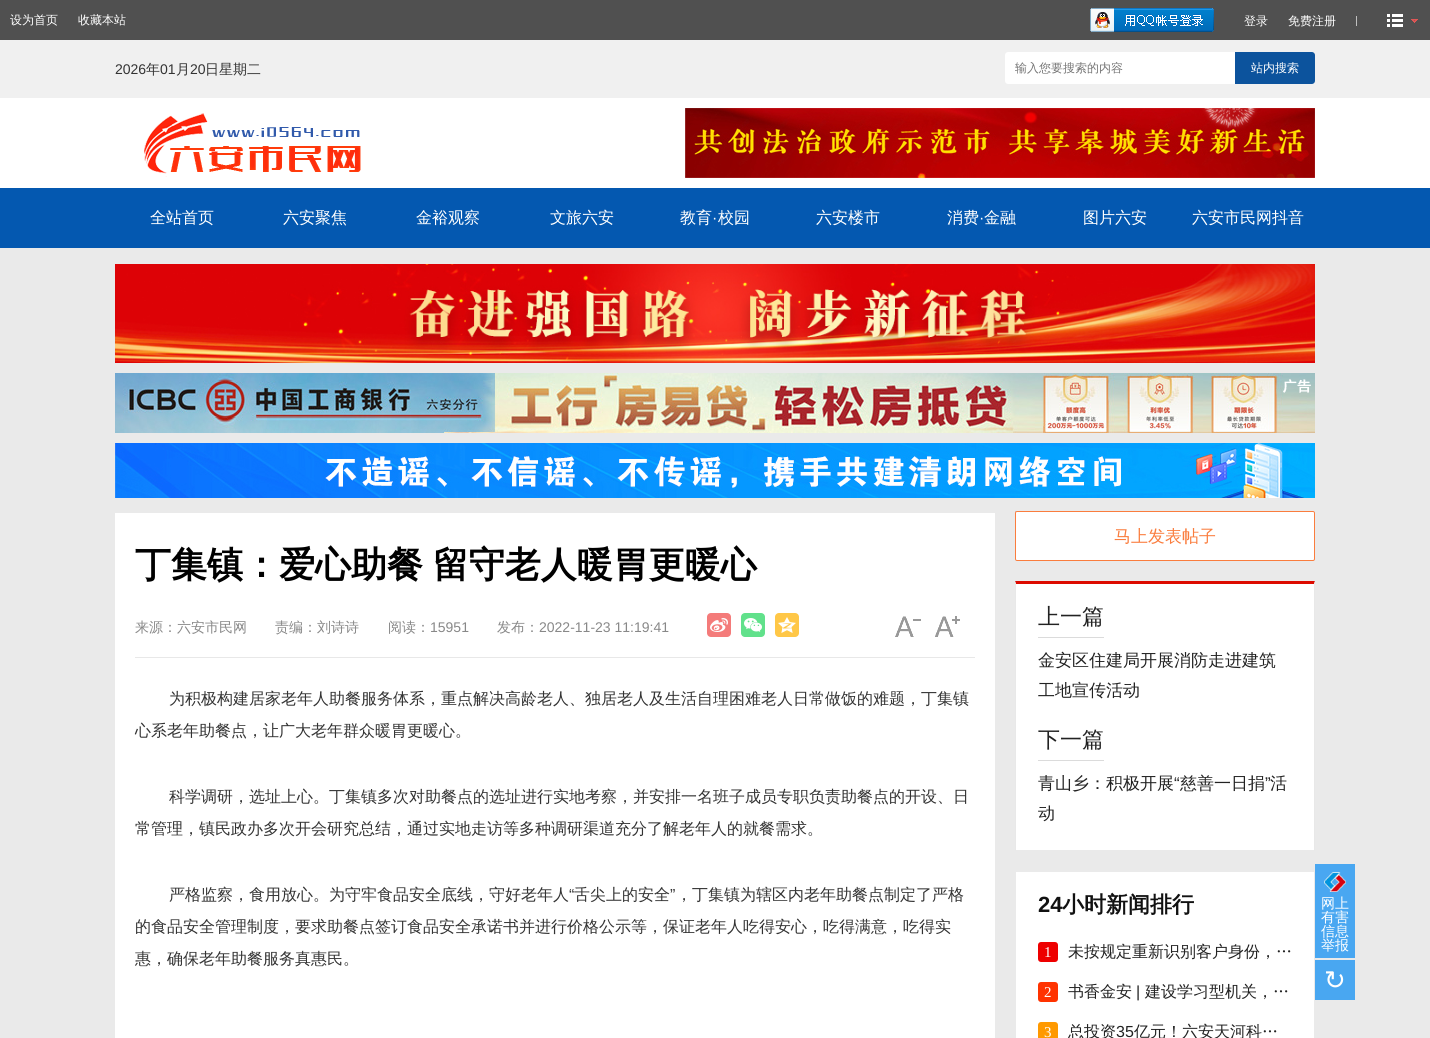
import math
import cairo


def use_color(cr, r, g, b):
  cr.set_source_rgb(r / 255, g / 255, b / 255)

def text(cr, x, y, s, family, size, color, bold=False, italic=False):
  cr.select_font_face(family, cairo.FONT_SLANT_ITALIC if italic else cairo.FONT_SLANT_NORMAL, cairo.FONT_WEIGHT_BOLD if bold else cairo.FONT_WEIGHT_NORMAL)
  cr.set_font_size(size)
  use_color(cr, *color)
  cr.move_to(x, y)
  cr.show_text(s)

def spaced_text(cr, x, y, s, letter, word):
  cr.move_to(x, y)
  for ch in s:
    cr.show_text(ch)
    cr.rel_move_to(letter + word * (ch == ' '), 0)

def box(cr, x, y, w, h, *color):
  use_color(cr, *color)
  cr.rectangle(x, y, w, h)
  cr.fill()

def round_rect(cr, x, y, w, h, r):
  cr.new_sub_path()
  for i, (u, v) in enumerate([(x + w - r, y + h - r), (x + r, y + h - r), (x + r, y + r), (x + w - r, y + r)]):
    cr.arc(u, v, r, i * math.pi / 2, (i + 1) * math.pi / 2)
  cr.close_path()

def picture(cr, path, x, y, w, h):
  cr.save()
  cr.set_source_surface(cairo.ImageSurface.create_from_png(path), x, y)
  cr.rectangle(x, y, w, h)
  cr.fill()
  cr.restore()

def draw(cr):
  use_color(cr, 234, 234, 234)
  cr.paint()
  box(cr, 0, 98, 1430, 90, 255, 255, 255)
  box(cr, 0, 0, 1430, 40, 80, 80, 80)
  picture(cr, "img_01.png", 1090, 8, 124, 24)
  box(cr, 1356, 16, 1, 10, 191, 191, 191)
  picture(cr, "img_02.png", 1387, 14, 31, 13)
  box(cr, 0, 40, 1430, 58, 240, 240, 240)
  use_color(cr, 255, 255, 255)
  cr.new_path()
  cr.move_to(1008, 52)
  cr.line_to(1235, 52)
  cr.line_to(1235, 84)
  cr.line_to(1008, 84)
  cr.curve_to(1006.5, 84, 1005, 82.5, 1005, 81)
  cr.line_to(1005, 55)
  cr.curve_to(1005, 53.5, 1006.5, 52, 1008, 52)
  cr.close_path()
  cr.fill()
  use_color(cr, 12, 83, 157)
  cr.new_path()
  cr.move_to(1235, 52)
  cr.line_to(1312, 52)
  cr.curve_to(1313.5, 52, 1315, 53.5, 1315, 55)
  cr.line_to(1315, 81)
  cr.curve_to(1315, 82.5, 1313.5, 84, 1312, 84)
  cr.line_to(1235, 84)
  cr.close_path()
  cr.fill()
  picture(cr, "img_03.png", 144, 113, 217, 64)
  picture(cr, "img_04.png", 685, 108, 630, 70)
  box(cr, 0, 188, 1430, 60, 4, 88, 176)
  picture(cr, "img_05.png", 115, 264, 1200, 99)
  picture(cr, "img_06.png", 115, 373, 1200, 60)
  picture(cr, "img_07.png", 115, 443, 1200, 55)
  box(cr, 115, 513, 880, 525, 255, 255, 255)
  box(cr, 135, 657, 840, 1, 232, 232, 232)
  picture(cr, "img_08.png", 707, 613, 24, 24)
  picture(cr, "img_09.png", 741, 613, 24, 24)
  picture(cr, "img_10.png", 775, 613, 24, 24)
  picture(cr, "img_11.png", 895, 616, 26, 21)
  picture(cr, "img_12.png", 935, 616, 25, 21)
  picture(cr, "img_13.png", 1015, 511, 1, 2)
  use_color(cr, 255, 255, 255)
  round_rect(cr, 1015.5, 511.5, 299, 49, 1.5)
  cr.fill_preserve()
  use_color(cr, 250, 125, 62)
  cr.set_line_width(1)
  cr.stroke()
  box(cr, 1016, 584, 298, 266, 255, 255, 255)
  use_color(cr, 220, 10, 0)
  cr.new_path()
  cr.move_to(1015, 581)
  cr.line_to(1315, 581)
  cr.line_to(1314, 584)
  cr.line_to(1016, 584)
  cr.close_path()
  cr.fill()
  use_color(cr, 232, 232, 232)
  cr.new_path()
  cr.move_to(1315, 581)
  cr.line_to(1315, 851)
  cr.line_to(1314, 850)
  cr.line_to(1314, 584)
  cr.close_path()
  cr.fill()
  cr.new_path()
  cr.move_to(1015, 851)
  cr.line_to(1015, 581)
  cr.line_to(1016, 584)
  cr.line_to(1016, 850)
  cr.close_path()
  cr.fill()
  box(cr, 1038, 637, 66, 1, 219, 219, 219)
  box(cr, 1038, 760, 66, 1, 219, 219, 219)
  box(cr, 1016, 872, 298, 166, 255, 255, 255)
  use_color(cr, 238, 0, 0)
  round_rect(cr, 1038, 942, 20, 20, 3)
  cr.fill()
  use_color(cr, 255, 51, 0)
  round_rect(cr, 1038, 982, 20, 20, 3)
  cr.fill()
  use_color(cr, 255, 153, 0)
  round_rect(cr, 1038, 1022, 20, 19, 3)
  cr.fill()
  box(cr, 1315, 864, 40, 94, 73, 167, 241)
  picture(cr, "img_14.png", 1324, 872, 22, 20)
  box(cr, 1315, 960, 40, 40, 73, 167, 241)
  text(cr, 10, 24, "设为首页", "WenQuanYi Zen Hei Medium", 12, (255, 255, 255))
  text(cr, 78, 24, "收藏本站", "WenQuanYi Zen Hei Medium", 12, (255, 255, 255))
  text(cr, 1244, 25, "登录", "WenQuanYi Zen Hei Medium", 12, (255, 255, 255))
  text(cr, 1288, 25, "免费注册", "WenQuanYi Zen Hei Medium", 12, (255, 255, 255))
  text(cr, 115, 74, "2026", "Liberation Sans", 14, (51, 51, 51))
  text(cr, 146, 74, "年", "WenQuanYi Zen Hei Medium", 14, (51, 51, 51))
  text(cr, 160, 74, "01", "Liberation Sans", 14, (51, 51, 51))
  text(cr, 176, 74, "月", "WenQuanYi Zen Hei Medium", 14, (51, 51, 51))
  text(cr, 190, 74, "20", "Liberation Sans", 14, (51, 51, 51))
  text(cr, 205, 74, "日星期二", "WenQuanYi Zen Hei Medium", 14, (51, 51, 51))
  text(cr, 1015, 72, "输入您要搜索的内容", "WenQuanYi Zen Hei Medium", 12, (117, 117, 117))
  text(cr, 1251, 72, "站内搜索", "WenQuanYi Zen Hei Medium", 12, (255, 255, 255))
  text(cr, 150, 223, "全站首页", "WenQuanYi Zen Hei Medium", 16, (255, 255, 255))
  text(cr, 283, 223, "六安聚焦", "WenQuanYi Zen Hei Medium", 16, (255, 255, 255))
  text(cr, 416, 223, "金裕观察", "WenQuanYi Zen Hei Medium", 16, (255, 255, 255))
  text(cr, 550, 223, "文旅六安", "WenQuanYi Zen Hei Medium", 16, (255, 255, 255))
  text(cr, 680, 223, "教育", "WenQuanYi Zen Hei Medium", 16, (255, 255, 255))
  text(cr, 712, 223, "·", "Liberation Sans", 16, (255, 255, 255))
  text(cr, 718, 223, "校园", "WenQuanYi Zen Hei Medium", 16, (255, 255, 255))
  text(cr, 816, 223, "六安楼市", "WenQuanYi Zen Hei Medium", 16, (255, 255, 255))
  text(cr, 947, 223, "消费", "WenQuanYi Zen Hei Medium", 16, (255, 255, 255))
  text(cr, 979, 223, "·", "Liberation Sans", 16, (255, 255, 255))
  text(cr, 984, 223, "金融", "WenQuanYi Zen Hei Medium", 16, (255, 255, 255))
  text(cr, 1083, 223, "图片六安", "WenQuanYi Zen Hei Medium", 16, (255, 255, 255))
  text(cr, 1192, 223, "六安市民网抖音", "WenQuanYi Zen Hei Medium", 16, (255, 255, 255))
  cr.select_font_face("WenQuanYi Zen Hei", cairo.FONT_SLANT_NORMAL, cairo.FONT_WEIGHT_BOLD)
  cr.set_font_size(36)
  use_color(cr, 0, 0, 0)
  spaced_text(cr, 135, 577, "丁集镇：爱心助餐 留守老人暖胃更暖心", 0, -1)
  text(cr, 135, 632, "来源：六安市民网", "WenQuanYi Zen Hei Medium", 14, (136, 136, 136))
  text(cr, 275, 632, "责编：刘诗诗", "WenQuanYi Zen Hei Medium", 14, (136, 136, 136))
  text(cr, 388, 632, "阅读：", "WenQuanYi Zen Hei Medium", 14, (136, 136, 136))
  text(cr, 430, 632, "15951", "Liberation Sans", 14, (136, 136, 136))
  text(cr, 497, 632, "发布：", "WenQuanYi Zen Hei Medium", 14, (136, 136, 136))
  text(cr, 539, 632, "2022-11-23 11:19:41", "Liberation Sans", 14, (136, 136, 136))
  text(cr, 169, 704, "为积极构建居家老年人助餐服务体系，重点解决高龄老人、独居老人及生活自理困难老人日常做饭的难题，丁集镇", "WenQuanYi Zen Hei Medium", 16, (51, 51, 51))
  text(cr, 135, 736, "心系老年助餐点，让广大老年群众暖胃更暖心。", "WenQuanYi Zen Hei Medium", 16, (51, 51, 51))
  text(cr, 169, 802, "科学调研，选址上心。丁集镇多次对助餐点的选址进行实地考察，并安排一名班子成员专职负责助餐点的开设、日", "WenQuanYi Zen Hei Medium", 16, (51, 51, 51))
  text(cr, 135, 834, "常管理，镇民政办多次开会研究总结，通过实地走访等多种调研渠道充分了解老年人的就餐需求。", "WenQuanYi Zen Hei Medium", 16, (51, 51, 51))
  text(cr, 169, 900, "严格监察，食用放心。为守牢食品安全底线，守好老年人", "WenQuanYi Zen Hei Medium", 16, (51, 51, 51))
  text(cr, 569, 900, "“", "Liberation Sans", 16, (51, 51, 51))
  text(cr, 574, 900, "舌尖上的安全", "WenQuanYi Zen Hei Medium", 16, (51, 51, 51))
  text(cr, 670, 900, "”", "Liberation Sans", 16, (51, 51, 51))
  text(cr, 676, 900, "，丁集镇为辖区内老年助餐点制定了严格", "WenQuanYi Zen Hei Medium", 16, (51, 51, 51))
  text(cr, 135, 932, "的食品安全管理制度，要求助餐点签订食品安全承诺书并进行价格公示等，保证老年人吃得安心，吃得满意，吃得实", "WenQuanYi Zen Hei Medium", 16, (51, 51, 51))
  text(cr, 135, 964, "惠，确保老年助餐服务真惠民。", "WenQuanYi Zen Hei Medium", 16, (51, 51, 51))
  text(cr, 1114, 542, "马上发表帖子", "WenQuanYi Zen Hei Medium", 17, (250, 125, 62))
  text(cr, 1038, 624, "上一篇", "WenQuanYi Zen Hei Medium", 22, (34, 34, 34))
  text(cr, 1038, 666, "金安区住建局开展消防走进建筑", "WenQuanYi Zen Hei Medium", 17, (34, 34, 34))
  text(cr, 1038, 696, "工地宣传活动", "WenQuanYi Zen Hei Medium", 17, (34, 34, 34))
  text(cr, 1038, 747, "下一篇", "WenQuanYi Zen Hei Medium", 22, (34, 34, 34))
  text(cr, 1038, 789, "青山乡：积极开展", "WenQuanYi Zen Hei Medium", 17, (34, 34, 34))
  text(cr, 1174, 789, "“", "Liberation Sans", 17, (34, 34, 34))
  text(cr, 1180, 789, "慈善一日捐", "WenQuanYi Zen Hei Medium", 17, (34, 34, 34))
  text(cr, 1265, 789, "”", "Liberation Sans", 17, (34, 34, 34))
  text(cr, 1270, 789, "活", "WenQuanYi Zen Hei Medium", 17, (34, 34, 34))
  text(cr, 1038, 819, "动", "WenQuanYi Zen Hei Medium", 17, (34, 34, 34))
  text(cr, 1038, 912, "24", "Liberation Sans", 22, (17, 17, 17), bold=True)
  text(cr, 1062, 912, "小时新闻排行", "WenQuanYi Zen Hei", 22, (17, 17, 17), bold=True)
  text(cr, 1044, 957, "1", "Liberation Serif", 15, (255, 255, 255))
  text(cr, 1068, 957, "未按规定重新识别客户身份，…", "WenQuanYi Zen Hei Medium", 16, (34, 34, 34))
  text(cr, 1044, 997, "2", "Liberation Serif", 15, (255, 255, 255))
  text(cr, 1068, 997, "书香金安", "WenQuanYi Zen Hei Medium", 16, (34, 34, 34))
  text(cr, 1136, 997, "|", "Liberation Sans", 16, (34, 34, 34))
  text(cr, 1145, 997, "建设学习型机关，…", "WenQuanYi Zen Hei Medium", 16, (34, 34, 34))
  text(cr, 1044, 1037, "3", "Liberation Serif", 15, (255, 255, 255))
  text(cr, 1068, 1037, "总投资", "WenQuanYi Zen Hei Medium", 16, (34, 34, 34))
  text(cr, 1116, 1037, "35", "Liberation Sans", 16, (34, 34, 34))
  text(cr, 1134, 1037, "亿元！六安天河科…", "WenQuanYi Zen Hei Medium", 16, (34, 34, 34))
  text(cr, 1321, 908, "网上", "WenQuanYi Zen Hei Medium", 14, (255, 255, 255))
  text(cr, 1321, 922, "有害", "WenQuanYi Zen Hei Medium", 14, (255, 255, 255))
  text(cr, 1321, 936, "信息", "WenQuanYi Zen Hei Medium", 14, (255, 255, 255))
  text(cr, 1321, 950, "举报", "WenQuanYi Zen Hei Medium", 14, (255, 255, 255))
  text(cr, 1324, 989, "↻", "DejaVu Sans", 26, (255, 255, 255))


surface = cairo.ImageSurface(cairo.FORMAT_RGB24, 1430, 1038)
cr = cairo.Context(surface)
options = cairo.FontOptions()
options.set_hint_metrics(cairo.HINT_METRICS_OFF)
options.set_hint_style(cairo.HINT_STYLE_NONE)
cr.set_font_options(options)
cr.set_miter_limit(4)
draw(cr)
surface.write_to_png("out.png")
